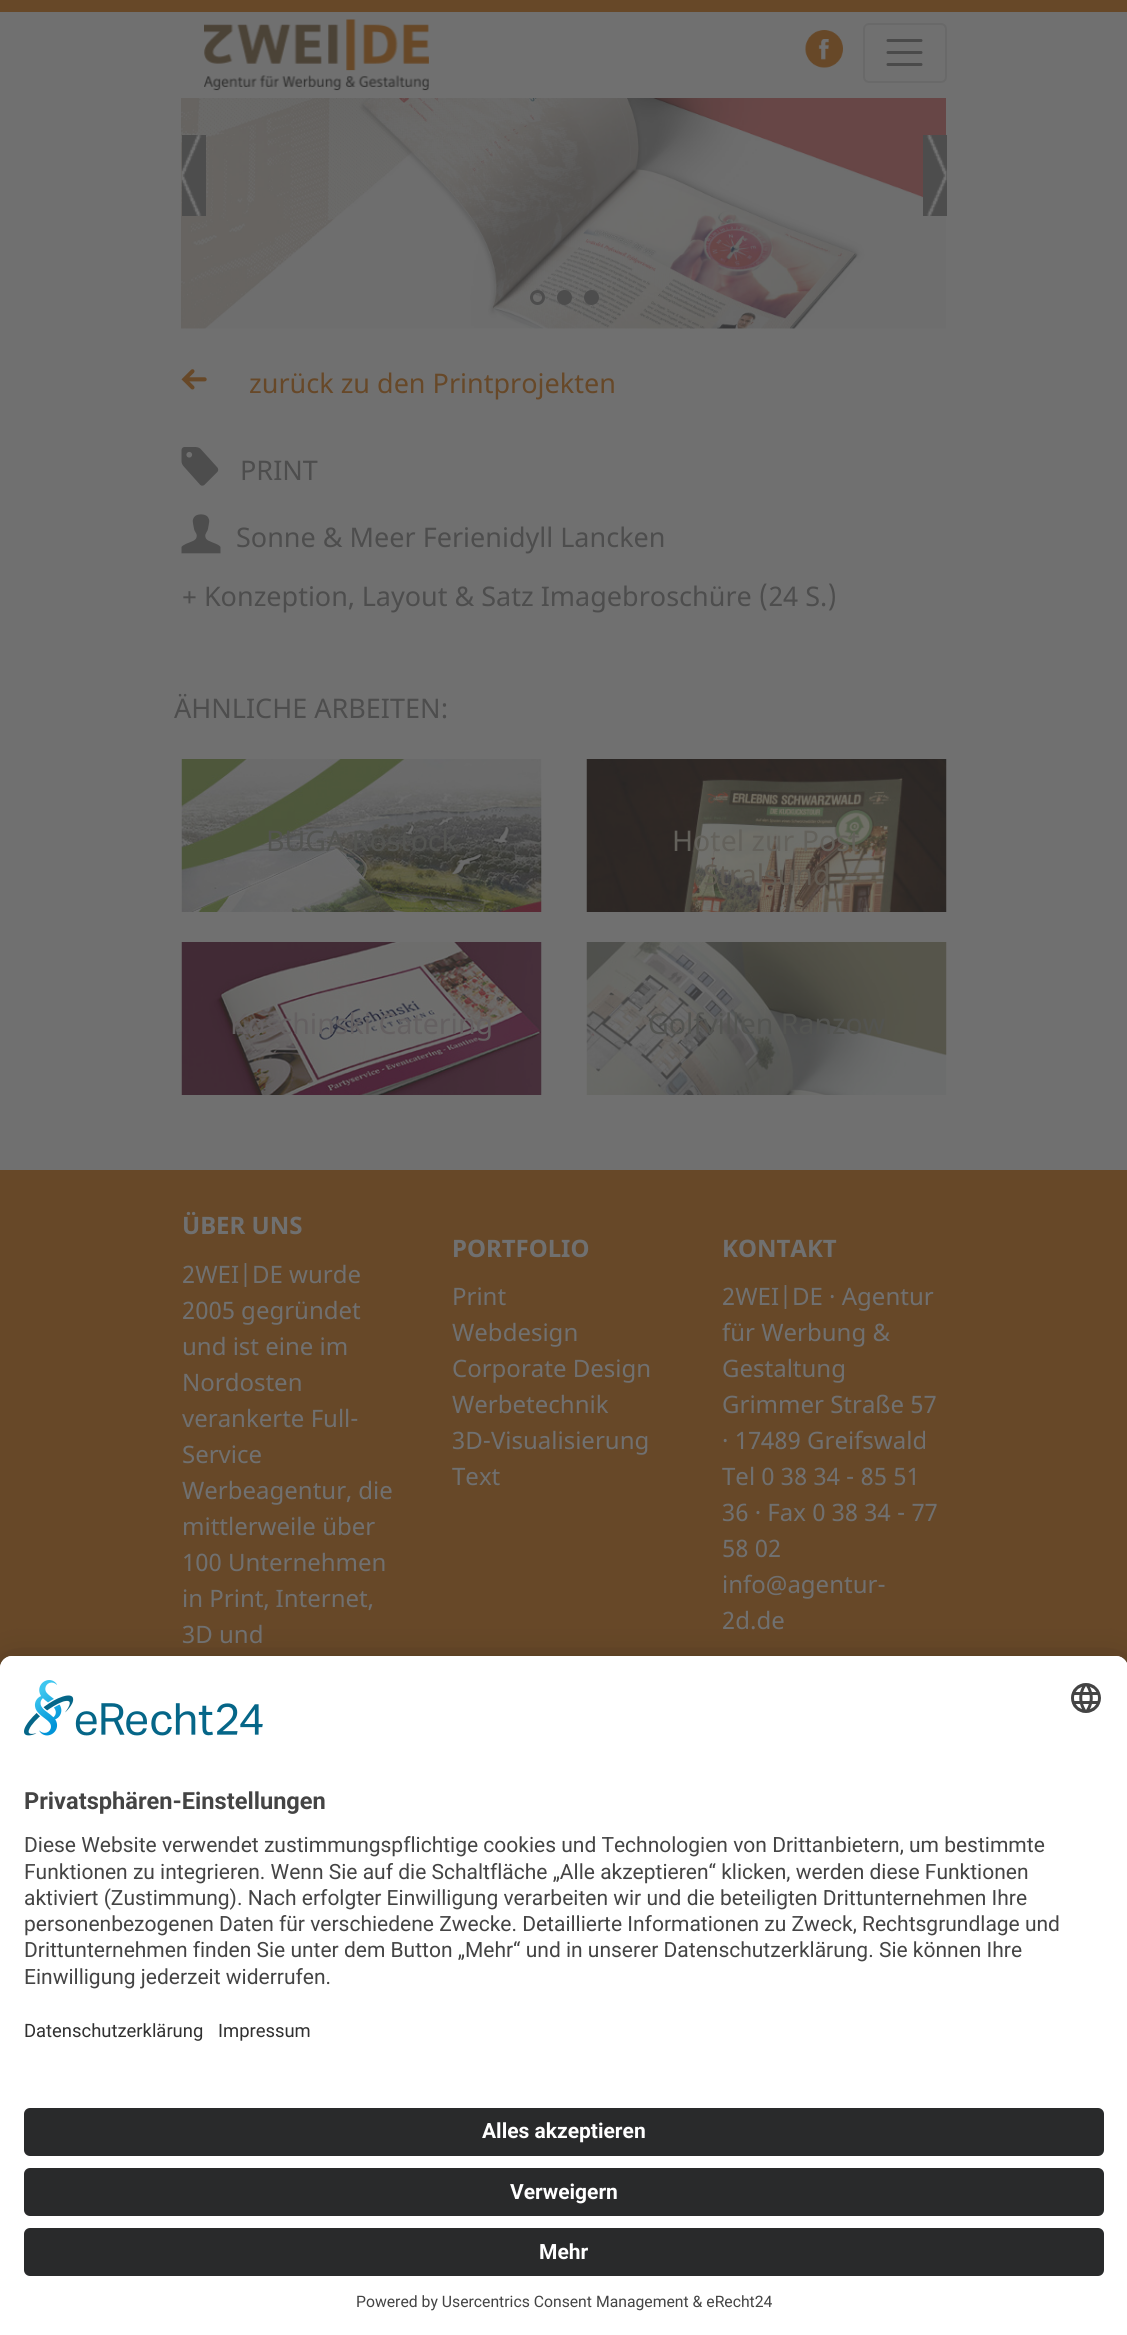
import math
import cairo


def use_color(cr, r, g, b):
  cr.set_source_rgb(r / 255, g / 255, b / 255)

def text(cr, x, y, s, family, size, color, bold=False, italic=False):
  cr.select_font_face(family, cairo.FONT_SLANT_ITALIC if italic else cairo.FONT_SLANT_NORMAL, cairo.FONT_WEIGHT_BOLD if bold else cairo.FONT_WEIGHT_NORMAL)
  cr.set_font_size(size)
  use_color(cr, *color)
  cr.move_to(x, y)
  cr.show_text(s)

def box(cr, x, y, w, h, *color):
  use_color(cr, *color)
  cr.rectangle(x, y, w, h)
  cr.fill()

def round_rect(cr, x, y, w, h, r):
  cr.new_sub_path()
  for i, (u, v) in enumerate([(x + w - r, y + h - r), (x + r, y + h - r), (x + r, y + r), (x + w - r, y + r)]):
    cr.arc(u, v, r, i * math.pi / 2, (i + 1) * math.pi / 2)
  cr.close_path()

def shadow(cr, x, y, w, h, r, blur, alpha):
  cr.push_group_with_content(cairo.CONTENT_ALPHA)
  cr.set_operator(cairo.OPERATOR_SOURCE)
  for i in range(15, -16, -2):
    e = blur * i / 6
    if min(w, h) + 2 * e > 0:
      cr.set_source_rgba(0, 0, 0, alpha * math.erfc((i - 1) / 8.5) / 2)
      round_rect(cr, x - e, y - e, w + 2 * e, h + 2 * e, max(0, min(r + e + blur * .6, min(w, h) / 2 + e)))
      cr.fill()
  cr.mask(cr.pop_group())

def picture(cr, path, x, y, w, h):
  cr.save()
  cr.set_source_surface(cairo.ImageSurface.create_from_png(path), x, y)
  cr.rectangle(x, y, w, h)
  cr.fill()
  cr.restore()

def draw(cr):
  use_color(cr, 112, 112, 112)
  cr.paint()
  box(cr, 0, 0, 1127, 12, 103, 72, 40)
  picture(cr, "img_01.png", 204, 19, 225, 72)
  picture(cr, "img_02.png", 805, 30, 38, 38)
  round_rect(cr, 864, 24, 82, 58, 5)
  use_color(cr, 105, 105, 105)
  cr.stroke()
  cr.new_path()
  cr.move_to(888, 40.5)
  cr.line_to(921, 40.5)
  cr.move_to(888, 52.5)
  cr.line_to(921, 52.5)
  cr.move_to(888, 64.5)
  cr.line_to(921, 64.5)
  use_color(cr, 74, 74, 74)
  cr.set_line_width(3)
  cr.set_line_cap(cairo.LINE_CAP_ROUND)
  cr.stroke()
  picture(cr, "img_03.png", 181, 98, 765, 231)
  box(cr, 182, 135, 24, 81, 77, 77, 77)
  picture(cr, "img_04.png", 181, 135, 21, 81)
  box(cr, 923, 135, 24, 81, 77, 77, 77)
  picture(cr, "img_05.png", 926, 135, 21, 81)
  cr.arc(537.5, 297.5, 6, 0, 2 * math.pi)
  cr.set_line_cap(cairo.LINE_CAP_BUTT)
  cr.stroke()
  cr.arc(564.5, 297.5, 6, 0, 2 * math.pi)
  cr.fill_preserve()
  cr.stroke()
  cr.arc(591.5, 297.5, 6, 0, 2 * math.pi)
  cr.fill_preserve()
  cr.stroke()
  picture(cr, "img_06.png", 181, 369, 26, 21)
  picture(cr, "img_07.png", 181, 447, 38, 39)
  picture(cr, "img_08.png", 181, 514, 40, 40)
  picture(cr, "img_09.png", 181, 759, 361, 153)
  picture(cr, "img_10.png", 586, 759, 361, 153)
  picture(cr, "img_11.png", 181, 942, 361, 153)
  picture(cr, "img_12.png", 586, 942, 361, 153)
  box(cr, 0, 1170, 1127, 498, 103, 72, 40)
  use_color(cr, 0, 0, 0)
  shadow(cr, 0, 1686, 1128, 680, 12, 21, 0.3)
  shadow(cr, 0, 1664, 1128, 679, 12, 19.5, 0.22)
  use_color(cr, 255, 255, 255)
  cr.new_path()
  cr.move_to(12, 1656)
  cr.line_to(1116, 1656)
  cr.curve_to(1122.5, 1656, 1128, 1661.5, 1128, 1668)
  cr.line_to(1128, 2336)
  cr.line_to(0, 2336)
  cr.line_to(0, 1668)
  cr.curve_to(0, 1661.5, 5.5, 1656, 12, 1656)
  cr.close_path()
  cr.fill()
  cr.new_path()
  cr.move_to(12, 1656)
  cr.line_to(1116, 1656)
  cr.curve_to(1122.5, 1656, 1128, 1661.5, 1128, 1668)
  cr.line_to(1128, 2090)
  cr.line_to(0, 2090)
  cr.line_to(0, 1668)
  cr.curve_to(0, 1661.5, 5.5, 1656, 12, 1656)
  cr.close_path()
  cr.fill()
  picture(cr, "img_13.png", 24, 1680, 239, 56)
  picture(cr, "img_14.png", 1071, 1683, 30, 30)
  use_color(cr, 41, 42, 43)
  round_rect(cr, 24, 2108, 1080, 48, 6)
  cr.fill()
  round_rect(cr, 24, 2168, 1080, 48, 6)
  cr.fill()
  round_rect(cr, 24, 2228, 1080, 48, 6)
  cr.fill()
  text(cr, 249, 393, "zurück zu den Printprojekten", "Noto Sans", 27, (103, 72, 40))
  text(cr, 240, 480, "PRINT", "Noto Sans", 27, (77, 77, 77))
  text(cr, 236, 547, "Sonne & Meer Ferienidyll Lancken", "Noto Sans", 27, (77, 77, 77))
  text(cr, 182, 606, "+ Konzeption, Layout & Satz Imagebroschüre (24 S.)", "Noto Sans", 27, (77, 77, 77))
  text(cr, 174, 718, "ÄHNLICHE ARBEITEN:", "Noto Sans", 27, (77, 77, 77))
  text(cr, 266, 851, "BUGA Rostock", "Noto Sans", 28.5, (83, 84, 81))
  text(cr, 672, 851, "Hotel zur Post", "Noto Sans", 28.5, (99, 97, 91))
  text(cr, 703, 885, "Stralsund", "Noto Sans", 28.5, (96, 91, 83))
  text(cr, 230, 1034, "Koschinski Catering", "Noto Sans", 28.5, (100, 96, 97))
  text(cr, 648, 1034, "Golfvillen Ranzow", "Noto Sans", 28.5, (83, 84, 81))
  text(cr, 182, 1234, "ÜBER UNS", "Noto Sans", 24, (112, 112, 112), bold=True)
  text(cr, 182, 1283, "2WEI|DE wurde", "Noto Sans", 24, (112, 112, 112))
  text(cr, 182, 1319, "2005 gegründet", "Noto Sans", 24, (112, 112, 112))
  text(cr, 182, 1355, "und ist eine im", "Noto Sans", 24, (112, 112, 112))
  text(cr, 182, 1391, "Nordosten", "Noto Sans", 24, (112, 112, 112))
  text(cr, 182, 1427, "verankerte Full-", "Noto Sans", 24, (112, 112, 112))
  text(cr, 182, 1463, "Service", "Noto Sans", 24, (112, 112, 112))
  text(cr, 182, 1499, "Werbeagentur, die", "Noto Sans", 24, (112, 112, 112))
  text(cr, 182, 1535, "mittlerweile über", "Noto Sans", 24, (112, 112, 112))
  text(cr, 182, 1571, "100 Unternehmen", "Noto Sans", 24, (112, 112, 112))
  text(cr, 182, 1607, "in Print, Internet,", "Noto Sans", 24, (112, 112, 112))
  text(cr, 182, 1643, "3D und", "Noto Sans", 24, (112, 112, 112))
  text(cr, 452, 1257, "PORTFOLIO", "Noto Sans", 24, (112, 112, 112), bold=True)
  text(cr, 452, 1305, "Print", "Noto Sans", 24, (112, 112, 112))
  text(cr, 452, 1341, "Webdesign", "Noto Sans", 24, (112, 112, 112))
  text(cr, 452, 1377, "Corporate Design", "Noto Sans", 24, (112, 112, 112))
  text(cr, 452, 1413, "Werbetechnik", "Noto Sans", 24, (112, 112, 112))
  text(cr, 452, 1449, "3D-Visualisierung", "Noto Sans", 24, (112, 112, 112))
  text(cr, 452, 1485, "Text", "Noto Sans", 24, (112, 112, 112))
  text(cr, 722, 1257, "KONTAKT", "Noto Sans", 24, (112, 112, 112), bold=True)
  text(cr, 722, 1305, "2WEI|DE · Agentur", "Noto Sans", 24, (112, 112, 112))
  text(cr, 722, 1341, "für Werbung &", "Noto Sans", 24, (112, 112, 112))
  text(cr, 722, 1377, "Gestaltung", "Noto Sans", 24, (112, 112, 112))
  text(cr, 722, 1413, "Grimmer Straße 57", "Noto Sans", 24, (112, 112, 112))
  text(cr, 722, 1449, "· 17489 Greifswald", "Noto Sans", 24, (112, 112, 112))
  text(cr, 722, 1485, "Tel 0 38 34 - 85 51", "Noto Sans", 24, (112, 112, 112))
  text(cr, 722, 1521, "36 · Fax 0 38 34 - 77", "Noto Sans", 24, (112, 112, 112))
  text(cr, 722, 1557, "58 02", "Noto Sans", 24, (112, 112, 112))
  text(cr, 722, 1593, "info@agentur-", "Noto Sans", 24, (112, 112, 112))
  text(cr, 722, 1629, "2d.de", "Noto Sans", 24, (112, 112, 112))
  text(cr, 24, 1809, "Privatsphären-Einstellungen", "Roboto", 23.6, (68, 68, 68), bold=True)
  text(cr, 24, 1852, "Diese Website verwendet zustimmungspflichtige cookies und Technologien von Drittanbietern, um bestimmte", "Roboto", 21, (68, 68, 68))
  text(cr, 24, 1879, "Funktionen zu integrieren. Wenn Sie auf die Schaltfläche „Alle akzeptieren“ klicken, werden diese Funktionen", "Roboto", 21, (68, 68, 68))
  text(cr, 24, 1905, "aktiviert (Zustimmung). Nach erfolgter Einwilligung verarbeiten wir und die beteiligten Drittunternehmen Ihre", "Roboto", 21, (68, 68, 68))
  text(cr, 24, 1931, "personenbezogenen Daten für verschiedene Zwecke. Detaillierte Informationen zu Zweck, Rechtsgrundlage und", "Roboto", 21, (68, 68, 68))
  text(cr, 24, 1957, "Drittunternehmen finden Sie unter dem Button „Mehr“ und in unserer Datenschutzerklärung. Sie können Ihre", "Roboto", 21, (68, 68, 68))
  text(cr, 24, 1984, "Einwilligung jederzeit widerrufen.", "Roboto", 21, (68, 68, 68))
  text(cr, 24, 2037, "Datenschutzerklärung", "Roboto", 18.4, (48, 48, 48))
  text(cr, 218, 2037, "Impressum", "Roboto", 18.4, (48, 48, 48))
  text(cr, 482, 2138, "Alles akzeptieren", "Roboto", 21, (255, 255, 255), bold=True)
  text(cr, 510, 2199, "Verweigern", "Roboto", 21, (255, 255, 255), bold=True)
  text(cr, 539, 2259, "Mehr", "Roboto", 21, (255, 255, 255), bold=True)
  text(cr, 356, 2307, "Powered by Usercentrics Consent Management & eRecht24", "Roboto", 15.75, (68, 68, 68))


surface = cairo.ImageSurface(cairo.FORMAT_RGB24, 1127, 2335)
cr = cairo.Context(surface)
options = cairo.FontOptions()
options.set_hint_metrics(cairo.HINT_METRICS_OFF)
options.set_hint_style(cairo.HINT_STYLE_NONE)
cr.set_font_options(options)
cr.set_miter_limit(4)
draw(cr)
surface.write_to_png("out.png")
